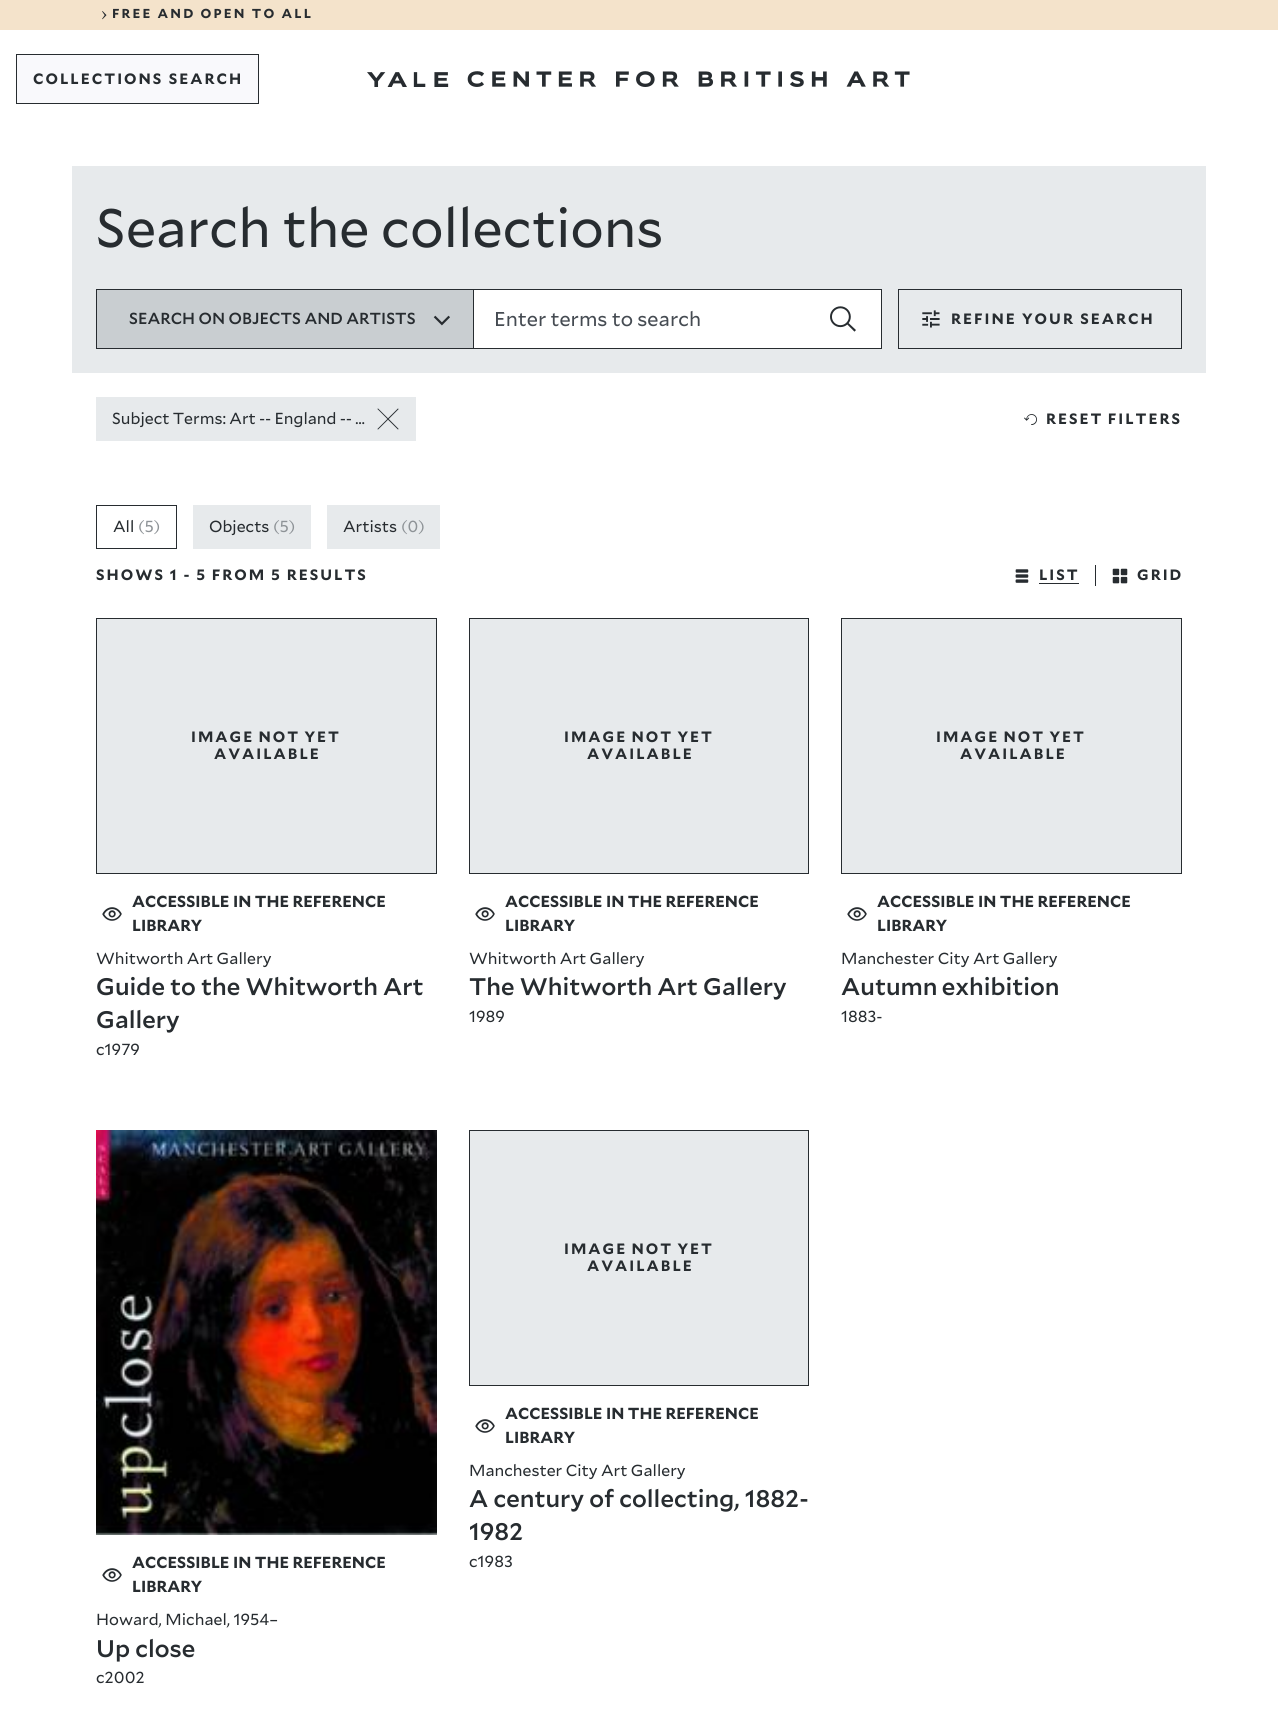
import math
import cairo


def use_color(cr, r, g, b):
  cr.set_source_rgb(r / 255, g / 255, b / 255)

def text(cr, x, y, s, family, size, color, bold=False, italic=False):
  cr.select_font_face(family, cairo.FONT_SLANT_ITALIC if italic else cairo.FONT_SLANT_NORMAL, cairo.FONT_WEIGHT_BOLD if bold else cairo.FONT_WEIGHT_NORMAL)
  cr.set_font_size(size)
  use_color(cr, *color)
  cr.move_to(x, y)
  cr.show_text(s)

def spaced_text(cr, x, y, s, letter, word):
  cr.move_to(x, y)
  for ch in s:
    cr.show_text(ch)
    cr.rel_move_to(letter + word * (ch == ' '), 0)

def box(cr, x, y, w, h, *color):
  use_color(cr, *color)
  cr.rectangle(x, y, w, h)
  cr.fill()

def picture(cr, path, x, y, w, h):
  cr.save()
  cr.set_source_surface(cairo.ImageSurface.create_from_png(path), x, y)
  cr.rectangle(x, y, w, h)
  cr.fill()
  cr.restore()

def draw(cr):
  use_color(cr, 255, 255, 255)
  cr.paint()
  box(cr, 0, 0, 1278, 30, 244, 227, 203)
  picture(cr, "img_01.png", 102, 11, 5, 9)
  use_color(cr, 249, 249, 252)
  cr.rectangle(16.5, 54.5, 242, 49)
  cr.fill_preserve()
  use_color(cr, 39, 44, 48)
  cr.set_line_width(1)
  cr.stroke()
  picture(cr, "img_02.png", 367, 71, 543, 16)
  box(cr, 72, 166, 1134, 207, 231, 234, 236)
  use_color(cr, 201, 206, 209)
  cr.rectangle(96.5, 289.5, 377, 59)
  cr.fill_preserve()
  use_color(cr, 39, 44, 48)
  cr.stroke()
  picture(cr, "img_03.png", 433, 315, 17, 11)
  use_color(cr, 255, 255, 255)
  cr.rectangle(473.5, 289.5, 408, 59)
  cr.fill_preserve()
  use_color(cr, 39, 44, 48)
  cr.stroke()
  picture(cr, "img_04.png", 830, 306, 26, 26)
  cr.rectangle(898.5, 289.5, 283, 59)
  cr.stroke()
  picture(cr, "img_05.png", 922, 310, 18, 18)
  box(cr, 96, 397, 320, 44, 231, 234, 236)
  picture(cr, "img_06.png", 377, 408, 22, 22)
  picture(cr, "img_07.png", 1024, 414, 13, 11)
  cr.rectangle(96.5, 505.5, 80, 43)
  use_color(cr, 39, 44, 48)
  cr.stroke()
  box(cr, 193, 505, 118, 44, 231, 234, 236)
  box(cr, 327, 505, 113, 44, 231, 234, 236)
  picture(cr, "img_08.png", 1015, 569, 14, 14)
  box(cr, 1039, 583, 40, 1, 39, 44, 48)
  box(cr, 1095, 565, 1, 21, 39, 44, 48)
  picture(cr, "img_09.png", 1112, 568, 16, 16)
  use_color(cr, 231, 234, 236)
  cr.rectangle(96.5, 618.5, 340, 255)
  cr.fill_preserve()
  use_color(cr, 39, 44, 48)
  cr.stroke()
  picture(cr, "img_10.png", 102, 907, 20, 14)
  use_color(cr, 231, 234, 236)
  cr.rectangle(469.5, 618.5, 339, 255)
  cr.fill_preserve()
  use_color(cr, 39, 44, 48)
  cr.stroke()
  picture(cr, "img_10.png", 475, 907, 20, 14)
  use_color(cr, 231, 234, 236)
  cr.rectangle(841.5, 618.5, 340, 255)
  cr.fill_preserve()
  use_color(cr, 39, 44, 48)
  cr.stroke()
  picture(cr, "img_10.png", 847, 907, 20, 14)
  use_color(cr, 231, 234, 236)
  cr.rectangle(469.5, 1130.5, 339, 255)
  cr.fill_preserve()
  use_color(cr, 39, 44, 48)
  cr.stroke()
  picture(cr, "img_10.png", 475, 1419, 20, 14)
  picture(cr, "img_11.png", 96, 1130, 341, 405)
  picture(cr, "img_10.png", 102, 1568, 20, 14)
  cr.select_font_face("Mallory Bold", cairo.FONT_SLANT_NORMAL, cairo.FONT_WEIGHT_BOLD)
  cr.set_font_size(13)
  spaced_text(cr, 112, 18, "FREE AND OPEN TO ALL", 2.2, 0)
  cr.set_font_size(15)
  spaced_text(cr, 33, 84, "COLLECTIONS SEARCH", 2, 0)
  text(cr, 96, 247, "Search the collections", "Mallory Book", 54, (39, 44, 48))
  text(cr, 129, 324, "SEARCH ON OBJECTS AND ARTISTS", "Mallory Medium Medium", 16, (39, 44, 48))
  text(cr, 494, 326, "Enter terms to search", "Mallory Book", 20, (69, 75, 82))
  cr.select_font_face("Mallory Bold", cairo.FONT_SLANT_NORMAL, cairo.FONT_WEIGHT_BOLD)
  cr.set_font_size(15)
  use_color(cr, 39, 44, 48)
  spaced_text(cr, 951, 324, "REFINE YOUR SEARCH", 2, 0)
  cr.select_font_face("Mallory Book")
  cr.set_font_size(16)
  spaced_text(cr, 112, 424, "Subject Terms: Art -- England -- …", 0, -0.25)
  cr.select_font_face("Mallory Bold", cairo.FONT_SLANT_NORMAL, cairo.FONT_WEIGHT_BOLD)
  cr.set_font_size(15)
  spaced_text(cr, 1046, 424, "RESET FILTERS", 2, -1)
  text(cr, 113, 532, "All", "Mallory Book", 16, (39, 44, 48))
  text(cr, 138, 532, "(5)", "Mallory Book", 16, (142, 147, 151))
  text(cr, 209, 532, "Objects", "Mallory Book", 16, (39, 44, 48))
  text(cr, 273, 532, "(5)", "Mallory Book", 16, (142, 147, 151))
  text(cr, 343, 532, "Artists", "Mallory Book", 16, (39, 44, 48))
  text(cr, 401, 532, "(0)", "Mallory Book", 16, (142, 147, 151))
  cr.select_font_face("Mallory Bold", cairo.FONT_SLANT_NORMAL, cairo.FONT_WEIGHT_BOLD)
  cr.set_font_size(15)
  use_color(cr, 39, 44, 48)
  spaced_text(cr, 96, 580, "SHOWS 1 - 5 FROM 5 RESULTS", 2, -0.5)
  spaced_text(cr, 1039, 580, "LIST", 2, 0)
  spaced_text(cr, 1137, 580, "GRID", 2, 0)
  spaced_text(cr, 191, 742, "IMAGE NOT YET", 2, -1)
  spaced_text(cr, 214, 759, "AVAILABLE", 2, 0)
  text(cr, 132, 907, "ACCESSIBLE IN THE REFERENCE", "Mallory Bold", 16, (39, 44, 48), bold=True)
  text(cr, 132, 931, "LIBRARY", "Mallory Bold", 16, (39, 44, 48), bold=True)
  text(cr, 96, 964, "Whitworth Art Gallery", "Mallory Book", 16, (39, 44, 48))
  text(cr, 96, 995, "Guide to the Whitworth Art", "Mallory Medium Medium", 24, (39, 44, 48))
  text(cr, 96, 1028, "Gallery", "Mallory Medium Medium", 24, (39, 44, 48))
  text(cr, 96, 1055, "c1979", "Mallory Book", 16, (39, 44, 48))
  cr.select_font_face("Mallory Bold", cairo.FONT_SLANT_NORMAL, cairo.FONT_WEIGHT_BOLD)
  cr.set_font_size(15)
  spaced_text(cr, 564, 742, "IMAGE NOT YET", 2, -1)
  spaced_text(cr, 587, 759, "AVAILABLE", 2, 0)
  text(cr, 505, 907, "ACCESSIBLE IN THE REFERENCE", "Mallory Bold", 16, (39, 44, 48), bold=True)
  text(cr, 505, 931, "LIBRARY", "Mallory Bold", 16, (39, 44, 48), bold=True)
  text(cr, 469, 964, "Whitworth Art Gallery", "Mallory Book", 16, (39, 44, 48))
  text(cr, 469, 995, "The Whitworth Art Gallery", "Mallory Medium Medium", 24, (39, 44, 48))
  text(cr, 469, 1022, "1989", "Mallory Book", 16, (39, 44, 48))
  cr.select_font_face("Mallory Bold", cairo.FONT_SLANT_NORMAL, cairo.FONT_WEIGHT_BOLD)
  cr.set_font_size(15)
  spaced_text(cr, 936, 742, "IMAGE NOT YET", 2, -1)
  spaced_text(cr, 960, 759, "AVAILABLE", 2, 0)
  text(cr, 877, 907, "ACCESSIBLE IN THE REFERENCE", "Mallory Bold", 16, (39, 44, 48), bold=True)
  text(cr, 877, 931, "LIBRARY", "Mallory Bold", 16, (39, 44, 48), bold=True)
  text(cr, 841, 964, "Manchester City Art Gallery", "Mallory Book", 16, (39, 44, 48))
  cr.select_font_face("Mallory Medium Medium")
  cr.set_font_size(24)
  spaced_text(cr, 841, 995, "Autumn exhibition", 0, -1)
  text(cr, 841, 1022, "1883-", "Mallory Book", 16, (39, 44, 48))
  cr.select_font_face("Mallory Bold", cairo.FONT_SLANT_NORMAL, cairo.FONT_WEIGHT_BOLD)
  cr.set_font_size(15)
  spaced_text(cr, 564, 1254, "IMAGE NOT YET", 2, -1)
  spaced_text(cr, 587, 1271, "AVAILABLE", 2, 0)
  text(cr, 505, 1419, "ACCESSIBLE IN THE REFERENCE", "Mallory Bold", 16, (39, 44, 48), bold=True)
  text(cr, 505, 1443, "LIBRARY", "Mallory Bold", 16, (39, 44, 48), bold=True)
  text(cr, 469, 1476, "Manchester City Art Gallery", "Mallory Book", 16, (39, 44, 48))
  text(cr, 469, 1507, "A century of collecting, 1882-", "Mallory Medium Medium", 24, (39, 44, 48))
  text(cr, 469, 1540, "1982", "Mallory Medium Medium", 24, (39, 44, 48))
  text(cr, 469, 1567, "c1983", "Mallory Book", 16, (39, 44, 48))
  text(cr, 132, 1568, "ACCESSIBLE IN THE REFERENCE", "Mallory Bold", 16, (39, 44, 48), bold=True)
  text(cr, 132, 1592, "LIBRARY", "Mallory Bold", 16, (39, 44, 48), bold=True)
  text(cr, 96, 1625, "Howard, Michael, 1954–", "Mallory Book", 16, (39, 44, 48))
  text(cr, 96, 1657, "Up close", "Mallory Medium Medium", 24, (39, 44, 48))
  text(cr, 96, 1683, "c2002", "Mallory Book", 16, (39, 44, 48))


surface = cairo.ImageSurface(cairo.FORMAT_RGB24, 1278, 1709)
cr = cairo.Context(surface)
options = cairo.FontOptions()
options.set_hint_metrics(cairo.HINT_METRICS_OFF)
options.set_hint_style(cairo.HINT_STYLE_NONE)
cr.set_font_options(options)
cr.set_miter_limit(4)
draw(cr)
surface.write_to_png("out.png")
